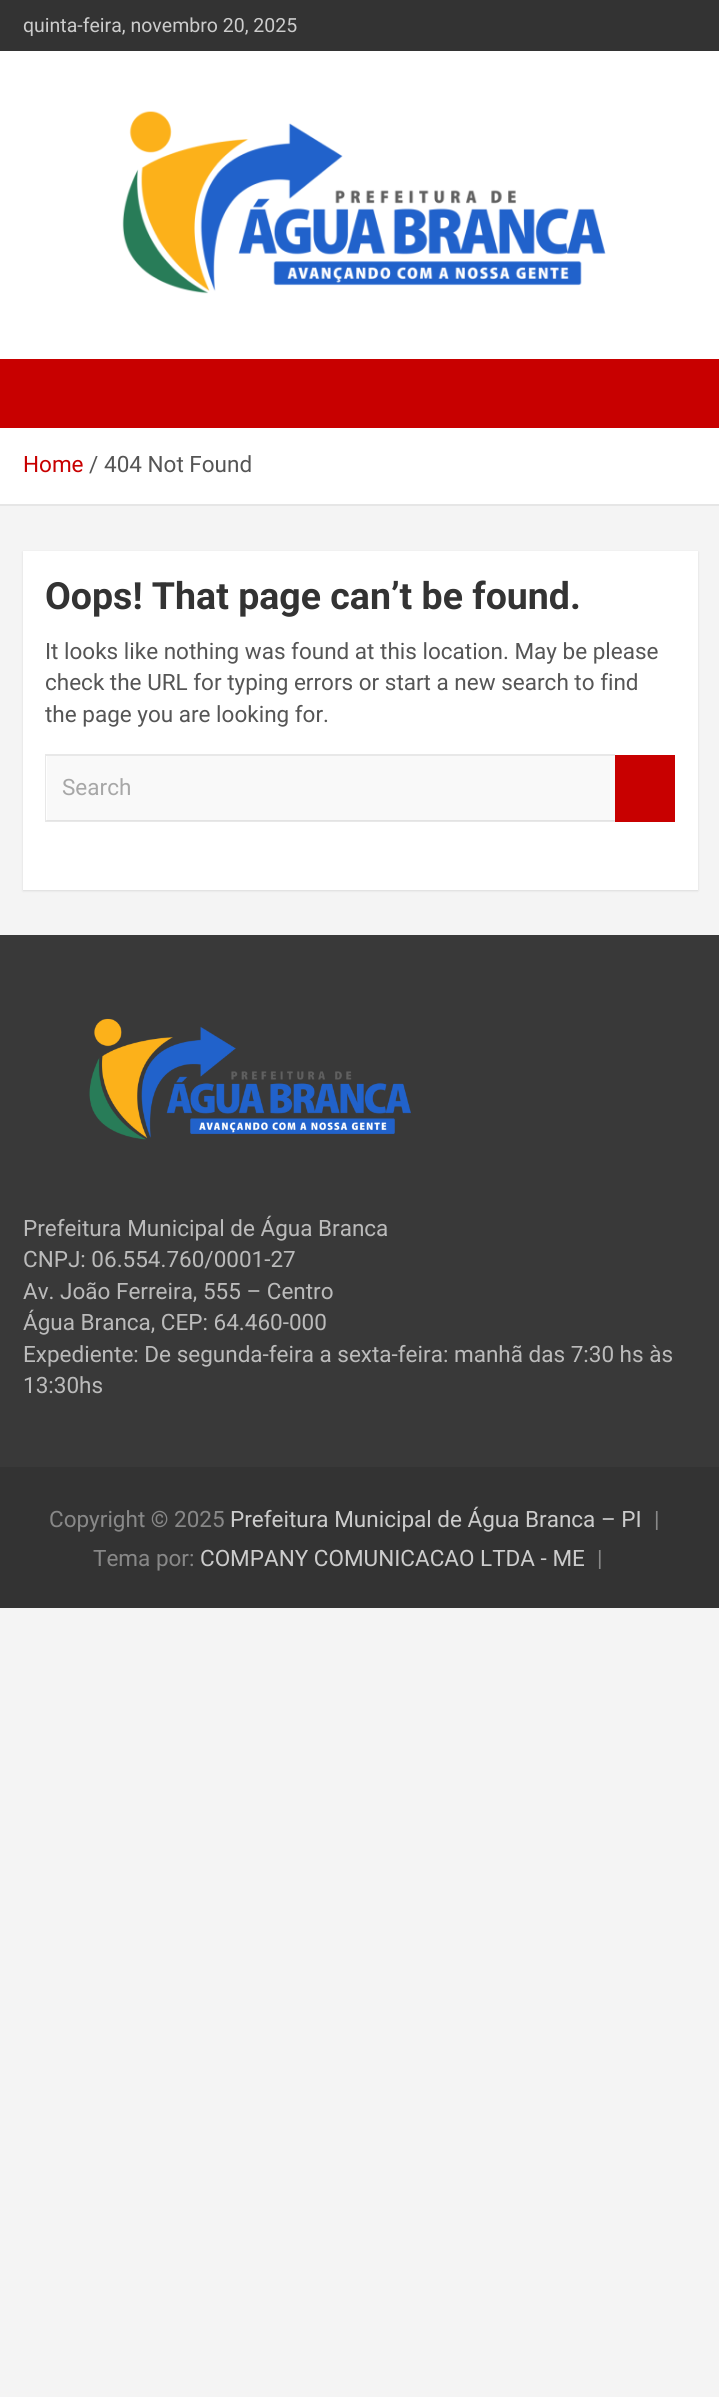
import math
import cairo


def use_color(cr, r, g, b):
  cr.set_source_rgb(r / 255, g / 255, b / 255)

def text(cr, x, y, s, family, size, color, bold=False, italic=False):
  cr.select_font_face(family, cairo.FONT_SLANT_ITALIC if italic else cairo.FONT_SLANT_NORMAL, cairo.FONT_WEIGHT_BOLD if bold else cairo.FONT_WEIGHT_NORMAL)
  cr.set_font_size(size)
  use_color(cr, *color)
  cr.move_to(x, y)
  cr.show_text(s)

def box(cr, x, y, w, h, *color):
  use_color(cr, *color)
  cr.rectangle(x, y, w, h)
  cr.fill()

def round_rect(cr, x, y, w, h, r):
  cr.new_sub_path()
  for i, (u, v) in enumerate([(x + w - r, y + h - r), (x + r, y + h - r), (x + r, y + r), (x + w - r, y + r)]):
    cr.arc(u, v, r, i * math.pi / 2, (i + 1) * math.pi / 2)
  cr.close_path()

def shadow(cr, x, y, w, h, r, blur, alpha):
  cr.push_group_with_content(cairo.CONTENT_ALPHA)
  cr.set_operator(cairo.OPERATOR_SOURCE)
  for i in range(15, -16, -2):
    e = blur * i / 6
    if min(w, h) + 2 * e > 0:
      cr.set_source_rgba(0, 0, 0, alpha * math.erfc((i - 1) / 8.5) / 2)
      round_rect(cr, x - e, y - e, w + 2 * e, h + 2 * e, max(0, min(r + e + blur * .6, min(w, h) / 2 + e)))
      cr.fill()
  cr.mask(cr.pop_group())

def picture(cr, path, x, y, w, h):
  cr.save()
  cr.set_source_surface(cairo.ImageSurface.create_from_png(path), x, y)
  cr.rectangle(x, y, w, h)
  cr.fill()
  cr.restore()

def draw(cr):
  use_color(cr, 244, 244, 244)
  cr.paint()
  box(cr, 0, 0, 719, 51, 51, 51, 51)
  box(cr, 0, 51, 719, 308, 255, 255, 255)
  picture(cr, "img_01.png", 122, 111, 484, 183)
  box(cr, 0, 359, 719, 69, 200, 0, 0)
  box(cr, 0, 428, 719, 76, 255, 255, 255)
  box(cr, 0, 504, 719, 2, 230, 230, 230)
  use_color(cr, 0, 0, 0)
  shadow(cr, 23, 552, 675, 339, 0, 1, 0.1)
  box(cr, 23, 551, 675, 339, 255, 255, 255)
  box(cr, 47, 756, 568, 65, 249, 249, 249)
  use_color(cr, 232, 232, 232)
  cr.new_path()
  cr.move_to(45, 754)
  cr.line_to(615, 754)
  cr.line_to(615, 756)
  cr.line_to(46, 756)
  cr.close_path()
  cr.fill()
  cr.set_source_rgba(0, 0, 0, 0.09)
  cr.new_path()
  cr.move_to(615, 822)
  cr.line_to(45, 822)
  cr.line_to(46, 820)
  cr.line_to(615, 820)
  cr.close_path()
  cr.fill()
  cr.new_path()
  cr.move_to(45, 822)
  cr.line_to(45, 754)
  cr.line_to(46, 756)
  cr.line_to(46, 820)
  cr.close_path()
  cr.fill()
  box(cr, 615, 755, 60, 67, 200, 0, 0)
  box(cr, 0, 935, 719, 532, 57, 57, 57)
  picture(cr, "img_02.png", 89, 1018, 322, 122)
  box(cr, 0, 1467, 719, 141, 51, 51, 51)
  text(cr, 23, 32, "quinta-feira, novembro 20, 2025", "Roboto", 19.5, (204, 204, 204))
  text(cr, 23, 472, "Home", "Roboto", 22.5, (200, 0, 0))
  text(cr, 89, 472, "/", "Roboto", 22.5, (85, 85, 85))
  text(cr, 104, 472, "404 Not Found", "Roboto", 22.5, (85, 85, 85))
  text(cr, 45, 609, "Oops! That page can’t be found.", "Roboto", 37.5, (51, 51, 51), bold=True)
  text(cr, 45, 659, "It looks like nothing was found at this location. May be please", "Roboto", 22.5, (85, 85, 85))
  text(cr, 45, 690, "check the URL for typing errors or start a new search to find", "Roboto", 22.5, (85, 85, 85))
  text(cr, 45, 722, "the page you are looking for.", "Roboto", 22.5, (85, 85, 85))
  text(cr, 62, 795, "Search", "Roboto", 22.5, (167, 167, 167))
  text(cr, 23, 1236, "Prefeitura Municipal de Água Branca", "Roboto", 22.5, (187, 187, 187))
  text(cr, 23, 1267, "CNPJ: 06.554.760/0001-27", "Roboto", 22.5, (187, 187, 187))
  text(cr, 23, 1299, "Av. João Ferreira, 555 – Centro", "Roboto", 22.5, (187, 187, 187))
  text(cr, 23, 1330, "Água Branca, CEP: 64.460-000", "Roboto", 22.5, (187, 187, 187))
  text(cr, 23, 1362, "Expediente: De segunda-feira a sexta-feira: manhã das 7:30 hs às", "Roboto", 22.5, (187, 187, 187))
  text(cr, 23, 1393, "13:30hs", "Roboto", 22.5, (187, 187, 187))
  text(cr, 49, 1527, "Copyright © 2025", "Roboto", 22.5, (136, 136, 136))
  text(cr, 230, 1527, "Prefeitura Municipal de Água Branca – PI", "Roboto", 22.5, (204, 204, 204))
  text(cr, 654, 1527, "|", "Roboto", 22.5, (136, 136, 136))
  text(cr, 93, 1566, "Tema por:", "Roboto", 22.5, (136, 136, 136))
  text(cr, 200, 1566, "COMPANY COMUNICACAO LTDA - ME", "Roboto", 22.5, (204, 204, 204))
  text(cr, 597, 1566, "|", "Roboto", 22.5, (136, 136, 136))


surface = cairo.ImageSurface(cairo.FORMAT_RGB24, 719, 2397)
cr = cairo.Context(surface)
options = cairo.FontOptions()
options.set_hint_metrics(cairo.HINT_METRICS_OFF)
options.set_hint_style(cairo.HINT_STYLE_NONE)
cr.set_font_options(options)
cr.set_miter_limit(4)
draw(cr)
surface.write_to_png("out.png")
